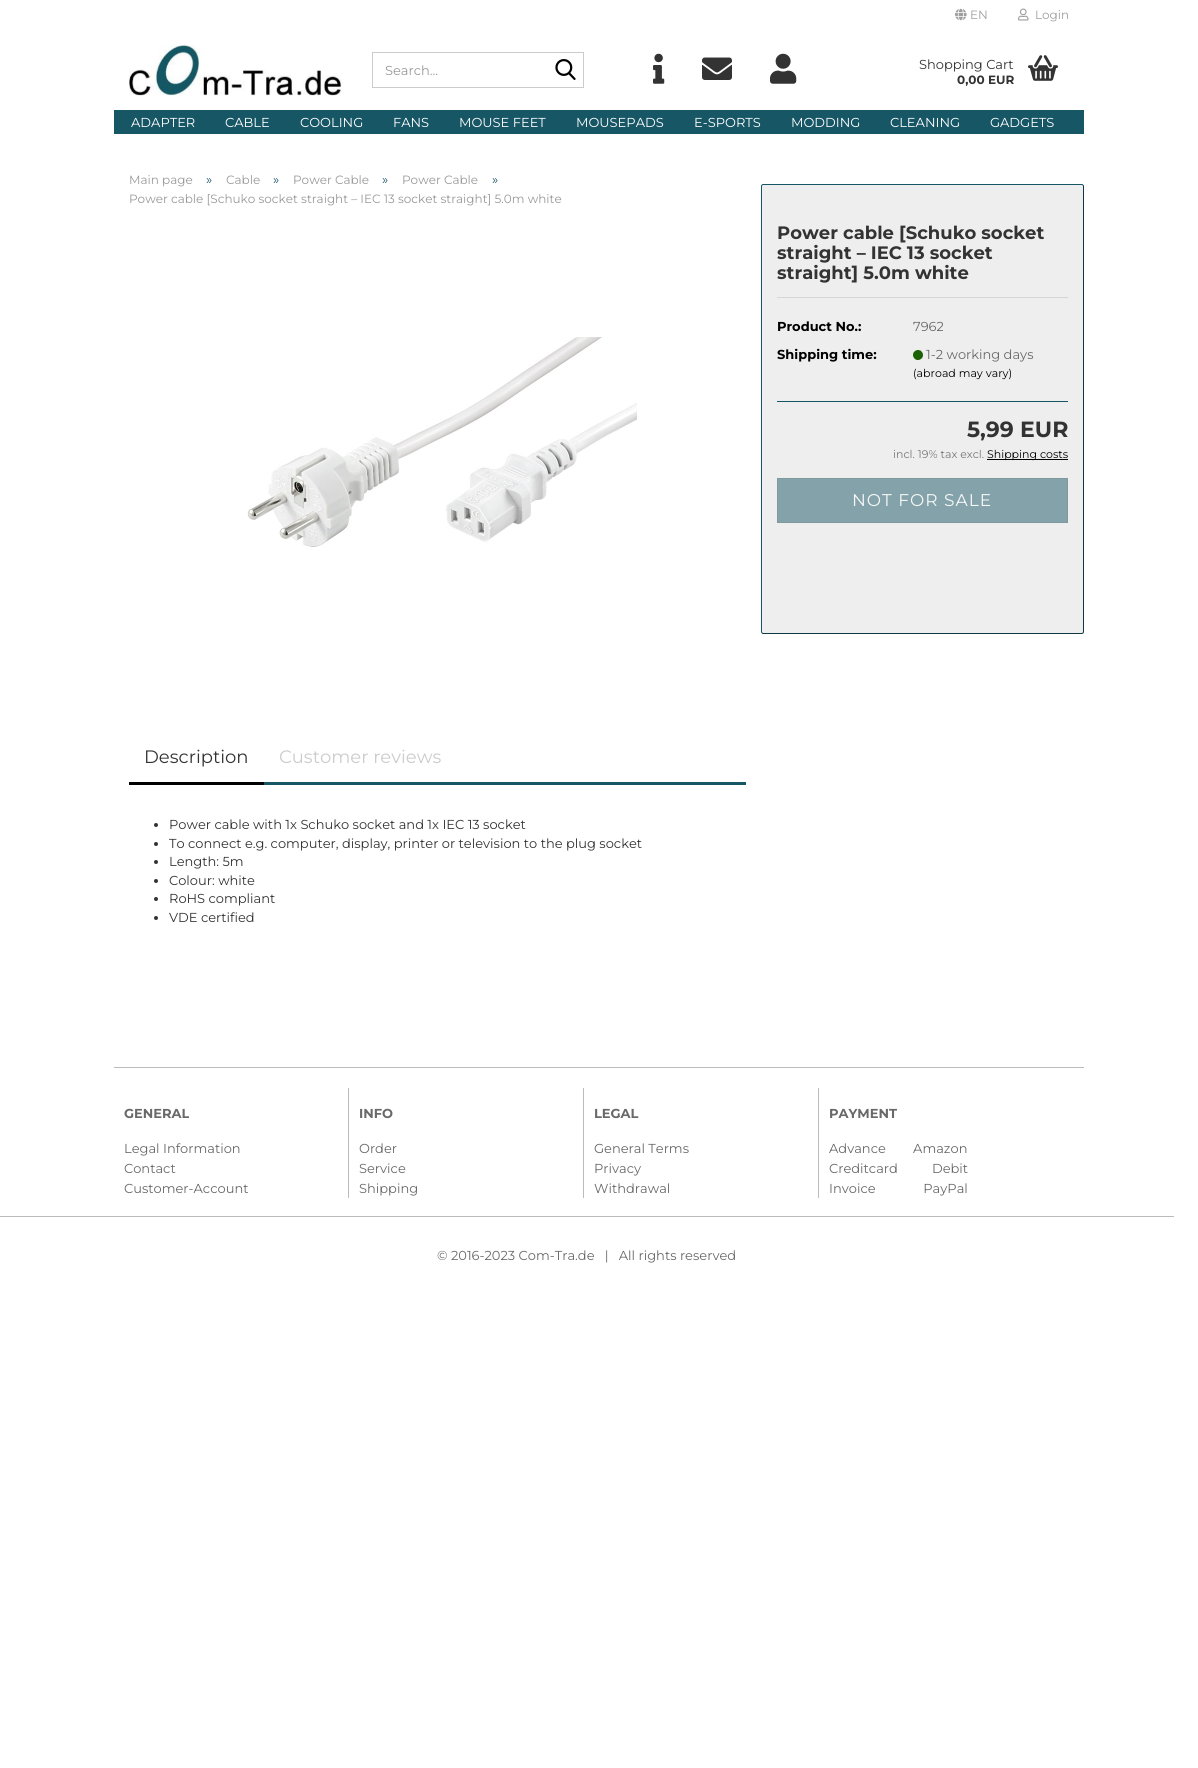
import math
import cairo


def use_color(cr, r, g, b):
  cr.set_source_rgb(r / 255, g / 255, b / 255)

def text(cr, x, y, s, family, size, color, bold=False, italic=False):
  cr.select_font_face(family, cairo.FONT_SLANT_ITALIC if italic else cairo.FONT_SLANT_NORMAL, cairo.FONT_WEIGHT_BOLD if bold else cairo.FONT_WEIGHT_NORMAL)
  cr.set_font_size(size)
  use_color(cr, *color)
  cr.move_to(x, y)
  cr.show_text(s)

def spaced_text(cr, x, y, s, letter, word):
  cr.move_to(x, y)
  for ch in s:
    cr.show_text(ch)
    cr.rel_move_to(letter + word * (ch == ' '), 0)

def box(cr, x, y, w, h, *color):
  use_color(cr, *color)
  cr.rectangle(x, y, w, h)
  cr.fill()

def round_rect(cr, x, y, w, h, r):
  cr.new_sub_path()
  for i, (u, v) in enumerate([(x + w - r, y + h - r), (x + r, y + h - r), (x + r, y + r), (x + w - r, y + r)]):
    cr.arc(u, v, r, i * math.pi / 2, (i + 1) * math.pi / 2)
  cr.close_path()

def picture(cr, path, x, y, w, h):
  cr.save()
  cr.set_source_surface(cairo.ImageSurface.create_from_png(path), x, y)
  cr.rectangle(x, y, w, h)
  cr.fill()
  cr.restore()

def draw(cr):
  use_color(cr, 255, 255, 255)
  cr.paint()
  picture(cr, "img_01.png", 955, 8, 12, 13)
  picture(cr, "img_02.png", 1018, 8, 11, 13)
  picture(cr, "img_03.png", 129, 45, 213, 51)
  cr.rectangle(372.5, 52.5, 211, 35)
  use_color(cr, 204, 204, 204)
  cr.set_line_width(1)
  cr.stroke()
  picture(cr, "img_04.png", 555, 59, 21, 21)
  picture(cr, "img_05.png", 653, 53, 12, 31)
  picture(cr, "img_06.png", 702, 57, 30, 23)
  picture(cr, "img_07.png", 770, 53, 27, 31)
  picture(cr, "img_08.png", 1028, 55, 30, 26)
  box(cr, 114, 110, 970, 24, 23, 86, 101)
  picture(cr, "img_09.png", 247, 337, 390, 210)
  use_color(cr, 238, 238, 238)
  round_rect(cr, 761, 184, 323, 450, 2)
  cr.fill()
  cr.new_path()
  cr.move_to(1083, 185)
  cr.line_to(1083.5, 186)
  cr.line_to(1083.5, 632)
  cr.line_to(1083, 633)
  cr.line_to(1082, 633.5)
  cr.line_to(763, 633.5)
  cr.line_to(762, 633)
  use_color(cr, 15, 57, 67)
  cr.stroke()
  cr.new_path()
  cr.move_to(762, 633)
  cr.line_to(761.5, 632)
  cr.line_to(761.5, 186)
  cr.line_to(762, 185)
  cr.line_to(763, 184.5)
  cr.line_to(1082, 184.5)
  cr.line_to(1083, 185)
  use_color(cr, 23, 86, 101)
  cr.stroke()
  box(cr, 777, 297, 291, 1, 213, 213, 213)
  box(cr, 777, 401, 291, 1, 23, 86, 101)
  picture(cr, "img_10.png", 913, 350, 10, 10)
  box(cr, 987, 459, 81, 1, 0, 0, 0)
  use_color(cr, 131, 162, 170)
  cr.rectangle(777.5, 478.5, 290, 44)
  cr.fill_preserve()
  use_color(cr, 128, 153, 159)
  cr.stroke()
  box(cr, 264, 782, 482, 3, 23, 86, 101)
  box(cr, 129, 782, 135, 3, 0, 0, 0)
  use_color(cr, 51, 51, 51)
  cr.arc(156, 825, 2, 0, 2 * math.pi)
  cr.fill()
  cr.arc(156, 844, 2, 0, 2 * math.pi)
  cr.fill()
  cr.arc(156, 862, 2, 0, 2 * math.pi)
  cr.fill()
  cr.arc(156, 881, 2, 0, 2 * math.pi)
  cr.fill()
  cr.arc(156, 899, 2, 0, 2 * math.pi)
  cr.fill()
  cr.arc(156, 918, 2, 0, 2 * math.pi)
  cr.fill()
  box(cr, 114, 1067, 970, 1, 187, 187, 187)
  box(cr, 348, 1088, 1, 110, 187, 187, 187)
  box(cr, 583, 1088, 1, 110, 187, 187, 187)
  box(cr, 818, 1088, 1, 110, 187, 187, 187)
  box(cr, 0, 1216, 1174, 1, 187, 187, 187)
  text(cr, 970, 19, "EN", "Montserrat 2 Thin", 12, (159, 159, 159))
  text(cr, 1035, 19, "Login", "Montserrat 2 Thin", 12, (159, 159, 159))
  text(cr, 385, 75, "Search...", "Montserrat 2 Thin", 13, (153, 153, 153))
  text(cr, 919, 69, "Shopping Cart", "Montserrat 2 Thin", 13, (51, 51, 51))
  text(cr, 957, 84, "0,00 EUR", "Montserrat Thin", 12, (51, 51, 51))
  text(cr, 131, 127, "ADAPTER", "Montserrat 2 Thin", 13, (255, 255, 255))
  text(cr, 225, 127, "CABLE", "Montserrat 2 Thin", 13, (255, 255, 255))
  text(cr, 300, 127, "COOLING", "Montserrat 2 Thin", 13, (255, 255, 255))
  text(cr, 393, 127, "FANS", "Montserrat 2 Thin", 13, (255, 255, 255))
  text(cr, 459, 127, "MOUSE FEET", "Montserrat 2 Thin", 13, (255, 255, 255))
  text(cr, 576, 127, "MOUSEPADS", "Montserrat 2 Thin", 13, (255, 255, 255))
  text(cr, 694, 127, "E-SPORTS", "Montserrat 2 Thin", 13, (255, 255, 255))
  text(cr, 791, 127, "MODDING", "Montserrat 2 Thin", 13, (255, 255, 255))
  text(cr, 890, 127, "CLEANING", "Montserrat 2 Thin", 13, (255, 255, 255))
  text(cr, 990, 127, "GADGETS", "Montserrat 2 Thin", 13, (255, 255, 255))
  text(cr, 129, 184, "Main page", "Montserrat 2 Thin", 12, (153, 153, 153))
  text(cr, 206, 184, "»", "Montserrat 2 Thin", 13, (23, 86, 101))
  text(cr, 226, 184, "Cable", "Montserrat 2 Thin", 12, (153, 153, 153))
  text(cr, 273, 184, "»", "Montserrat 2 Thin", 13, (23, 86, 101))
  text(cr, 293, 184, "Power Cable", "Montserrat 2 Thin", 12, (153, 153, 153))
  text(cr, 382, 184, "»", "Montserrat 2 Thin", 13, (23, 86, 101))
  text(cr, 402, 184, "Power Cable", "Montserrat 2 Thin", 12, (153, 153, 153))
  text(cr, 492, 184, "»", "Montserrat 2 Thin", 13, (23, 86, 101))
  text(cr, 129, 203, "Power cable [Schuko socket straight – IEC 13 socket straight] 5.0m white", "Montserrat 2 Thin", 12, (153, 153, 153))
  text(cr, 777, 239, "Power cable [Schuko socket", "Montserrat Thin", 18, (51, 51, 51))
  text(cr, 777, 259, "straight – IEC 13 socket", "Montserrat Thin", 18, (51, 51, 51))
  text(cr, 777, 279, "straight] 5.0m white", "Montserrat Thin", 18, (51, 51, 51))
  text(cr, 777, 331, "Product No.:", "Montserrat Thin", 13, (0, 0, 0))
  text(cr, 913, 331, "7962", "Montserrat 2 Thin", 13, (105, 105, 105))
  text(cr, 777, 359, "Shipping time:", "Montserrat Thin", 13, (0, 0, 0))
  text(cr, 926, 359, "1-2 working days", "Montserrat 2 Thin", 13, (105, 105, 105))
  text(cr, 913, 377, "(abroad may vary)", "Montserrat 2 Thin", 11, (0, 0, 0))
  text(cr, 967, 437, "5,99 EUR", "Montserrat Thin", 22, (51, 51, 51))
  text(cr, 893, 458, "incl. 19% tax excl.", "Montserrat 2 Thin", 11, (119, 119, 119))
  text(cr, 987, 458, "Shipping costs", "Montserrat 2 Thin", 11, (0, 0, 0))
  cr.set_font_size(17)
  use_color(cr, 247, 247, 247)
  spaced_text(cr, 852, 506, "NOT FOR SALE", 1, 0)
  text(cr, 144, 763, "Description", "Montserrat 2 Thin", 18, (51, 51, 51))
  text(cr, 279, 763, "Customer reviews", "Montserrat 2 Thin", 18, (204, 204, 204))
  text(cr, 169, 829, "Power cable with 1x Schuko socket and 1x IEC 13 socket", "Montserrat 2 Thin", 13, (51, 51, 51))
  text(cr, 169, 848, "To connect e.g. computer, display, printer or television to the plug socket", "Montserrat 2 Thin", 13, (51, 51, 51))
  text(cr, 169, 866, "Length: 5m", "Montserrat 2 Thin", 13, (51, 51, 51))
  text(cr, 169, 885, "Colour: white", "Montserrat 2 Thin", 13, (51, 51, 51))
  text(cr, 169, 903, "RoHS compliant", "Montserrat 2 Thin", 13, (51, 51, 51))
  text(cr, 169, 922, "VDE certified", "Montserrat 2 Thin", 13, (51, 51, 51))
  text(cr, 124, 1118, "GENERAL", "Montserrat Thin", 13, (105, 105, 105))
  text(cr, 124, 1153, "Legal Information", "Montserrat 2 Thin", 13, (105, 105, 105))
  text(cr, 124, 1173, "Contact", "Montserrat 2 Thin", 13, (105, 105, 105))
  text(cr, 124, 1193, "Customer-Account", "Montserrat 2 Thin", 13, (105, 105, 105))
  text(cr, 359, 1118, "INFO", "Montserrat Thin", 13, (105, 105, 105))
  text(cr, 359, 1153, "Order", "Montserrat 2 Thin", 13, (105, 105, 105))
  text(cr, 359, 1173, "Service", "Montserrat 2 Thin", 13, (105, 105, 105))
  text(cr, 359, 1193, "Shipping", "Montserrat 2 Thin", 13, (105, 105, 105))
  text(cr, 594, 1118, "LEGAL", "Montserrat Thin", 13, (105, 105, 105))
  text(cr, 594, 1153, "General Terms", "Montserrat 2 Thin", 13, (105, 105, 105))
  text(cr, 594, 1173, "Privacy", "Montserrat 2 Thin", 13, (105, 105, 105))
  text(cr, 594, 1193, "Withdrawal", "Montserrat 2 Thin", 13, (105, 105, 105))
  text(cr, 829, 1118, "PAYMENT", "Montserrat Thin", 13, (105, 105, 105))
  text(cr, 829, 1153, "Advance        Amazon", "Montserrat 2 Thin", 13, (105, 105, 105))
  text(cr, 829, 1173, "Creditcard          Debit", "Montserrat 2 Thin", 13, (105, 105, 105))
  text(cr, 829, 1193, "Invoice              PayPal", "Montserrat 2 Thin", 13, (105, 105, 105))
  text(cr, 437, 1260, "© 2016-2023 Com-Tra.de   |   All rights reserved", "Montserrat 2 Thin", 13, (105, 105, 105))


surface = cairo.ImageSurface(cairo.FORMAT_RGB24, 1198, 1768)
cr = cairo.Context(surface)
options = cairo.FontOptions()
options.set_hint_metrics(cairo.HINT_METRICS_OFF)
options.set_hint_style(cairo.HINT_STYLE_NONE)
cr.set_font_options(options)
cr.set_miter_limit(4)
draw(cr)
surface.write_to_png("out.png")
